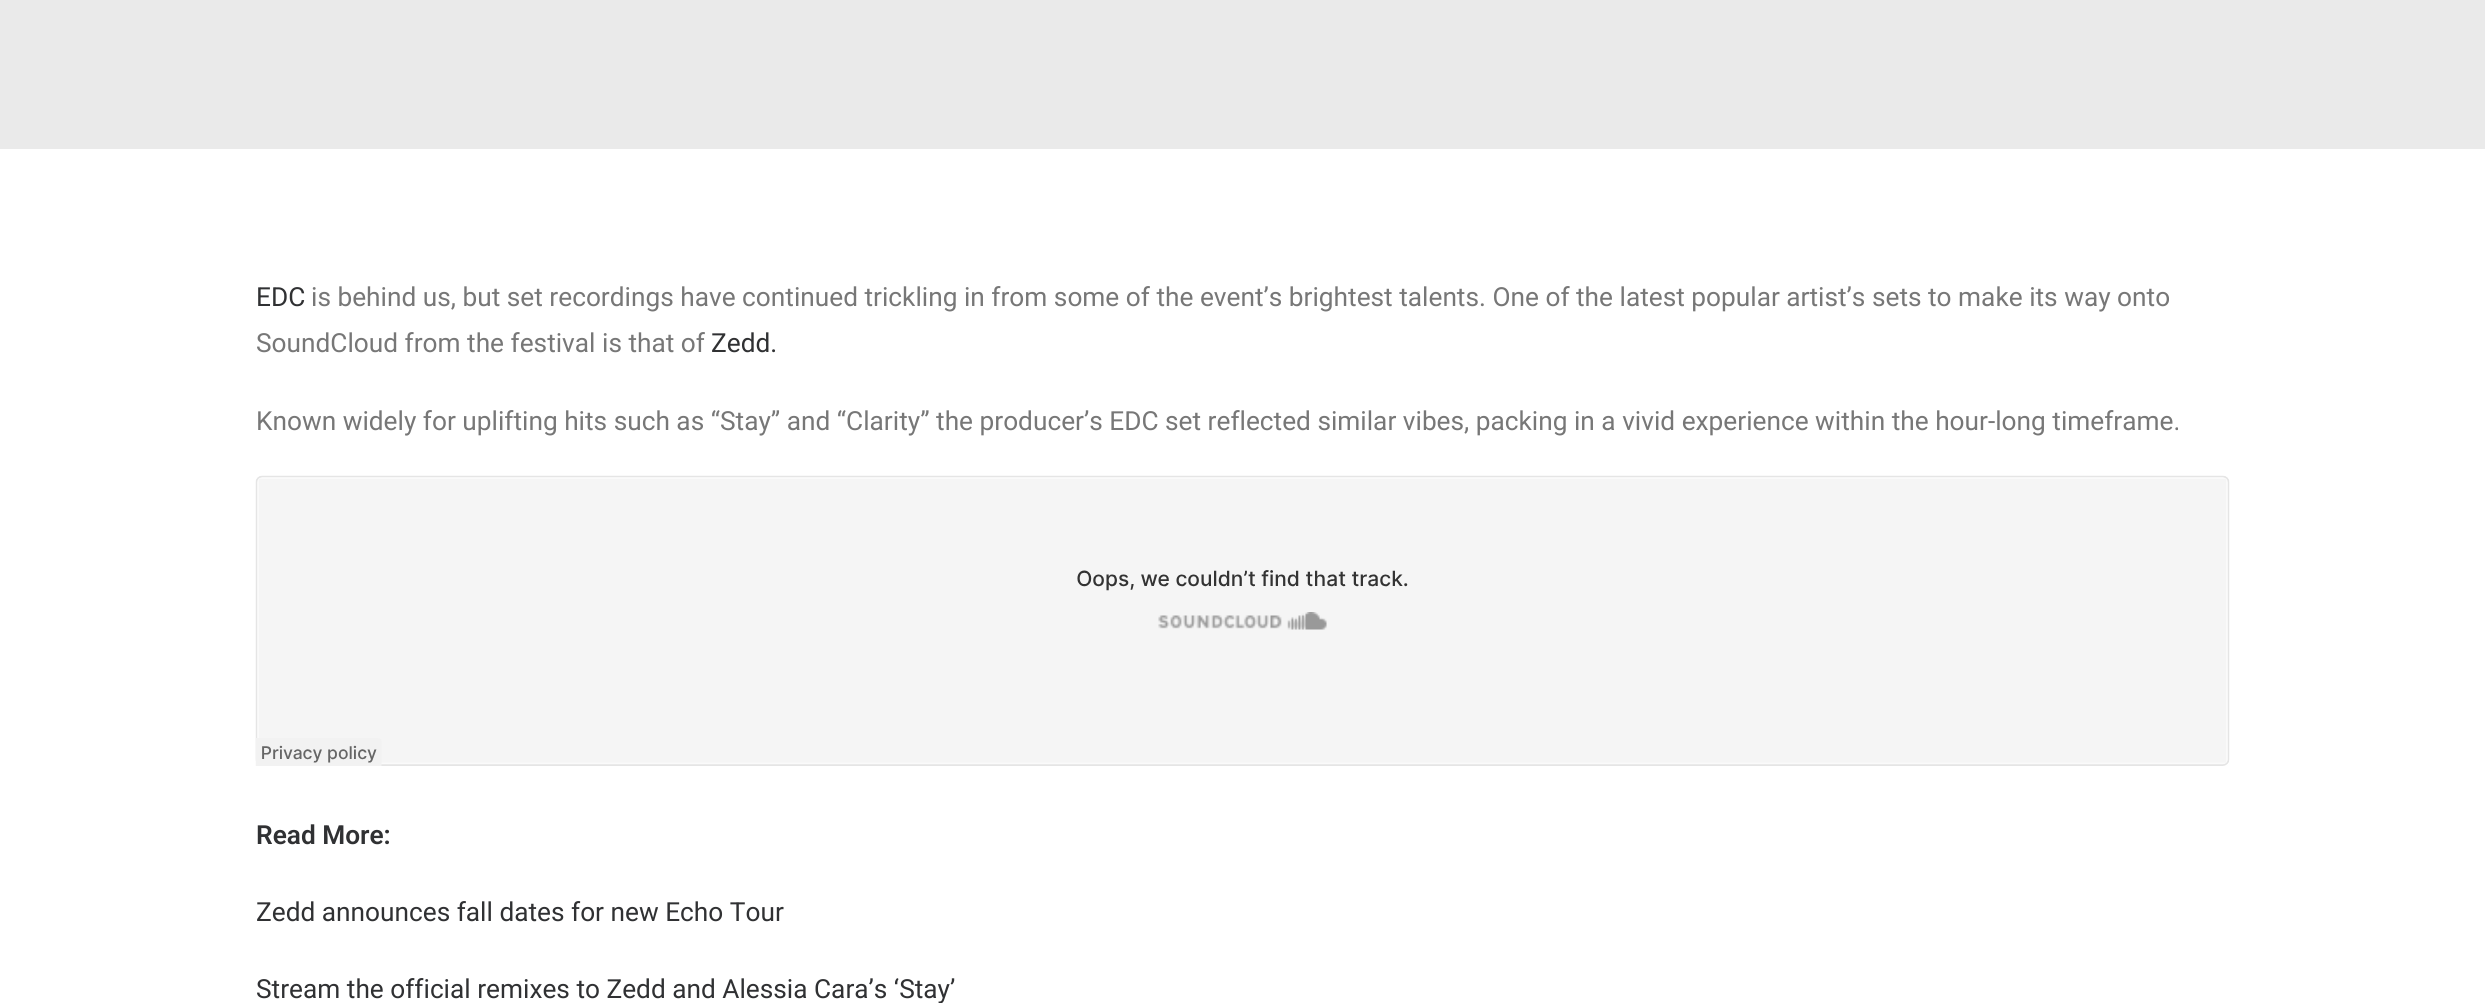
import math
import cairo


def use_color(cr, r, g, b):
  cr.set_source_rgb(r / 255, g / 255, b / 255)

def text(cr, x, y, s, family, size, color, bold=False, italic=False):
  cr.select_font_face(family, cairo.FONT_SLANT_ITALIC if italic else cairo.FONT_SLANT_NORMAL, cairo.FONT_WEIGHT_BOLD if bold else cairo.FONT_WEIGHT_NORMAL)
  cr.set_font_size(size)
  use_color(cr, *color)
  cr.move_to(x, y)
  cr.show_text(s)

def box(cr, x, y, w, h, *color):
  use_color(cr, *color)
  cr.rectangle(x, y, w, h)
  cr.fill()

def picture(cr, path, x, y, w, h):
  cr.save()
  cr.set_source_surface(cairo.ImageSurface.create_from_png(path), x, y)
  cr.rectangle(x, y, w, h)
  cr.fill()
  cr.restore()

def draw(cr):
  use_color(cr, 234, 234, 234)
  cr.paint()
  box(cr, 0, 149, 2485, 854, 255, 255, 255)
  picture(cr, "img_01.png", 255, 475, 1975, 291)
  text(cr, 256, 306, "EDC", "Roboto", 26.25, (48, 49, 51))
  text(cr, 311, 306, "is behind us, but set recordings have continued trickling in from some of the event’s brightest talents. One of the latest popular artist’s sets to make its way onto", "Roboto", 26.25, (119, 119, 119))
  text(cr, 256, 352, "SoundCloud from the festival is that of", "Roboto", 26.25, (119, 119, 119))
  text(cr, 711, 352, "Zedd.", "Roboto", 26.25, (48, 49, 51))
  text(cr, 256, 430, "Known widely for uplifting hits such as “Stay” and “Clarity” the producer’s EDC set reflected similar vibes, packing in a vivid experience within the hour-long timeframe.", "Roboto", 26.25, (119, 119, 119))
  text(cr, 256, 844, "Read More:", "Roboto SemiBold", 26.25, (48, 49, 51))
  text(cr, 256, 921, "Zedd announces fall dates for new Echo Tour", "Roboto", 26.25, (48, 49, 51))
  text(cr, 256, 998, "Stream the official remixes to Zedd and Alessia Cara’s ‘Stay’", "Roboto", 26.25, (48, 49, 51))


surface = cairo.ImageSurface(cairo.FORMAT_RGB24, 2485, 1003)
cr = cairo.Context(surface)
options = cairo.FontOptions()
options.set_hint_metrics(cairo.HINT_METRICS_OFF)
options.set_hint_style(cairo.HINT_STYLE_NONE)
cr.set_font_options(options)
cr.set_miter_limit(4)
draw(cr)
surface.write_to_png("out.png")
